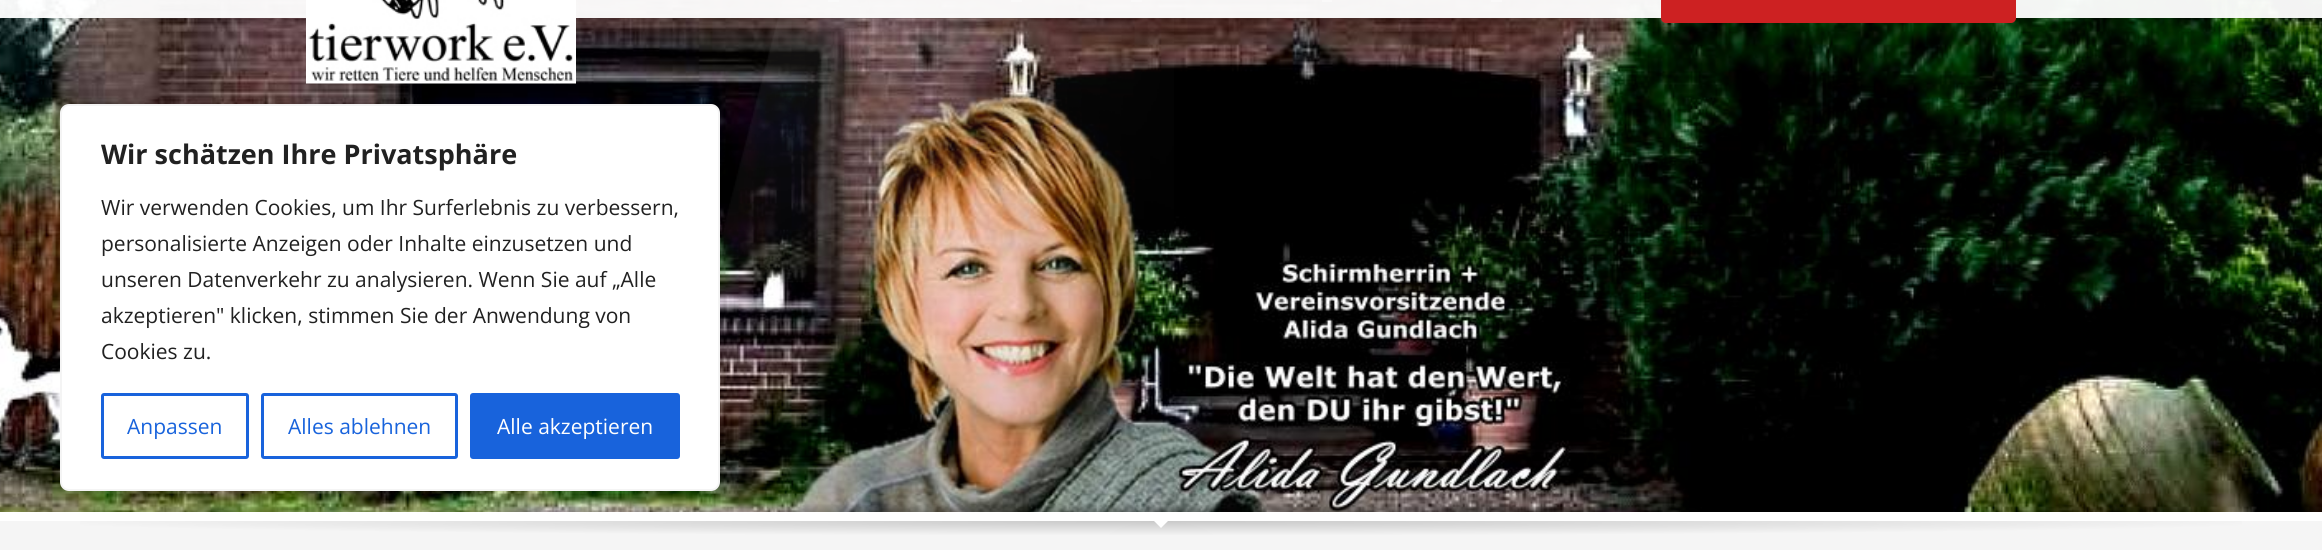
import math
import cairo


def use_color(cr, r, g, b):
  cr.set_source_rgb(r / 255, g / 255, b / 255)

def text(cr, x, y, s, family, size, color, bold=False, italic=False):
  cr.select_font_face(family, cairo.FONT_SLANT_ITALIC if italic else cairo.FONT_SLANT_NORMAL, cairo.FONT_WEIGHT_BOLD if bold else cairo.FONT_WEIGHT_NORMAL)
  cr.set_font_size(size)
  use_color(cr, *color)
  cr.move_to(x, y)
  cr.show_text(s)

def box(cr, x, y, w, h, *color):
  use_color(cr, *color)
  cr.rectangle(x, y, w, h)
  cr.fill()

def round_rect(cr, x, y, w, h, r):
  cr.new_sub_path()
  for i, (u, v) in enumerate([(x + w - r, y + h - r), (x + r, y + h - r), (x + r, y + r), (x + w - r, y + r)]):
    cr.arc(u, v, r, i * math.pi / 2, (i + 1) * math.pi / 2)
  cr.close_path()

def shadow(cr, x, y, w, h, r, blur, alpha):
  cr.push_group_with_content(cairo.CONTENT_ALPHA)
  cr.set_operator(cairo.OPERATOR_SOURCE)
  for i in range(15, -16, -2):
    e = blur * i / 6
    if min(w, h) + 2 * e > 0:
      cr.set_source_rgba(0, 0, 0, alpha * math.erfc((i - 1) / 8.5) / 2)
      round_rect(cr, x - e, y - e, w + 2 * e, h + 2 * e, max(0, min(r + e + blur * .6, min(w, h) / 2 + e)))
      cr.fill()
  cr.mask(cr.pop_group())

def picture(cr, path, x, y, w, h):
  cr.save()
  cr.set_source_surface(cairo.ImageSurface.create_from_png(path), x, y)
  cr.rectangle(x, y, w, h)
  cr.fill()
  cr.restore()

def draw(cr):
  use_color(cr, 245, 245, 245)
  cr.paint()
  picture(cr, "img_02.png", 0, 0, 2322, 512)
  picture(cr, "img_03.png", 720, 0, 454, 282)
  cr.save()
  cr.rectangle(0, 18, 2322, 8)
  cr.clip()
  use_color(cr, 0, 0, 0)
  shadow(cr, 0, -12, 2322, 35, 0, 4, 0.1)
  cr.restore()
  cr.set_source_rgba(1, 1, 1, 0.95)
  cr.rectangle(0, 0, 2322, 18)
  cr.fill()
  picture(cr, "img_01.png", 306, 0, 270, 84)
  box(cr, 828, 0, 11, 2, 250, 250, 250)
  box(cr, 1011, 0, 11, 2, 250, 249, 249)
  box(cr, 1131, 0, 11, 2, 250, 249, 249)
  box(cr, 1322, 0, 10, 2, 250, 249, 249)
  box(cr, 1491, 0, 11, 2, 250, 249, 249)
  use_color(cr, 205, 33, 34)
  round_rect(cr, 1661, -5, 355, 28, 5)
  cr.fill()
  box(cr, 0, 512, 2322, 9, 255, 255, 255)
  gradient = cairo.RadialGradient(0, 0, 0, 0, 0, 1)
  gradient.set_matrix(cairo.Matrix(1 / 1642, 0, 0, 1 / 21, -1 * 1161 / 1642, -1 * 521 / 21))
  gradient.add_color_stop_rgba(0, 0.788, 0.788, 0.788, 1)
  gradient.add_color_stop_rgba(0.7, 0.961, 0.961, 0.961, 1)
  cr.set_source(gradient)
  cr.rectangle(80, 521, 2162, 14)
  cr.fill()
  use_color(cr, 255, 255, 255)
  cr.new_path()
  cr.move_to(1152, 519)
  cr.line_to(1170, 519)
  cr.line_to(1161, 528)
  cr.close_path()
  cr.fill()
  cr.save()
  round_rect(cr, 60, 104, 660, 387, 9)
  cr.clip()
  use_color(cr, 172, 171, 171)
  shadow(cr, 60, 102, 660, 387, 9, 7.5, 0.3)
  cr.restore()
  round_rect(cr, 61, 105, 658, 385, 8)
  cr.fill_preserve()
  use_color(cr, 244, 244, 244)
  cr.stroke()
  round_rect(cr, 102.5, 394.5, 145, 63, 1.5)
  use_color(cr, 24, 99, 220)
  cr.set_line_width(3)
  cr.stroke()
  round_rect(cr, 262.5, 394.5, 194, 63, 1.5)
  cr.stroke()
  round_rect(cr, 471.5, 394.5, 207, 63, 1.5)
  cr.fill_preserve()
  cr.stroke()
  text(cr, 101, 164, "Wir schätzen Ihre Privatsphäre", "Open Sans", 27, (33, 33, 33), bold=True)
  text(cr, 101, 215, "Wir verwenden Cookies, um Ihr Surferlebnis zu verbessern,", "Open Sans", 21, (33, 33, 33))
  text(cr, 101, 251, "personalisierte Anzeigen oder Inhalte einzusetzen und", "Open Sans", 21, (33, 33, 33))
  text(cr, 101, 287, "unseren Datenverkehr zu analysieren. Wenn Sie auf „Alle", "Open Sans", 21, (33, 33, 33))
  text(cr, 101, 323, "akzeptieren\" klicken, stimmen Sie der Anwendung von", "Open Sans", 21, (33, 33, 33))
  text(cr, 101, 359, "Cookies zu.", "Open Sans", 21, (33, 33, 33))
  text(cr, 127, 434, "Anpassen", "Open Sans", 21, (24, 99, 220))
  text(cr, 288, 434, "Alles ablehnen", "Open Sans", 21, (24, 99, 220))
  text(cr, 497, 434, "Alle akzeptieren", "Open Sans", 21, (255, 255, 255))


surface = cairo.ImageSurface(cairo.FORMAT_RGB24, 2322, 550)
cr = cairo.Context(surface)
options = cairo.FontOptions()
options.set_hint_metrics(cairo.HINT_METRICS_OFF)
options.set_hint_style(cairo.HINT_STYLE_NONE)
cr.set_font_options(options)
cr.set_miter_limit(4)
draw(cr)
surface.write_to_png("out.png")
